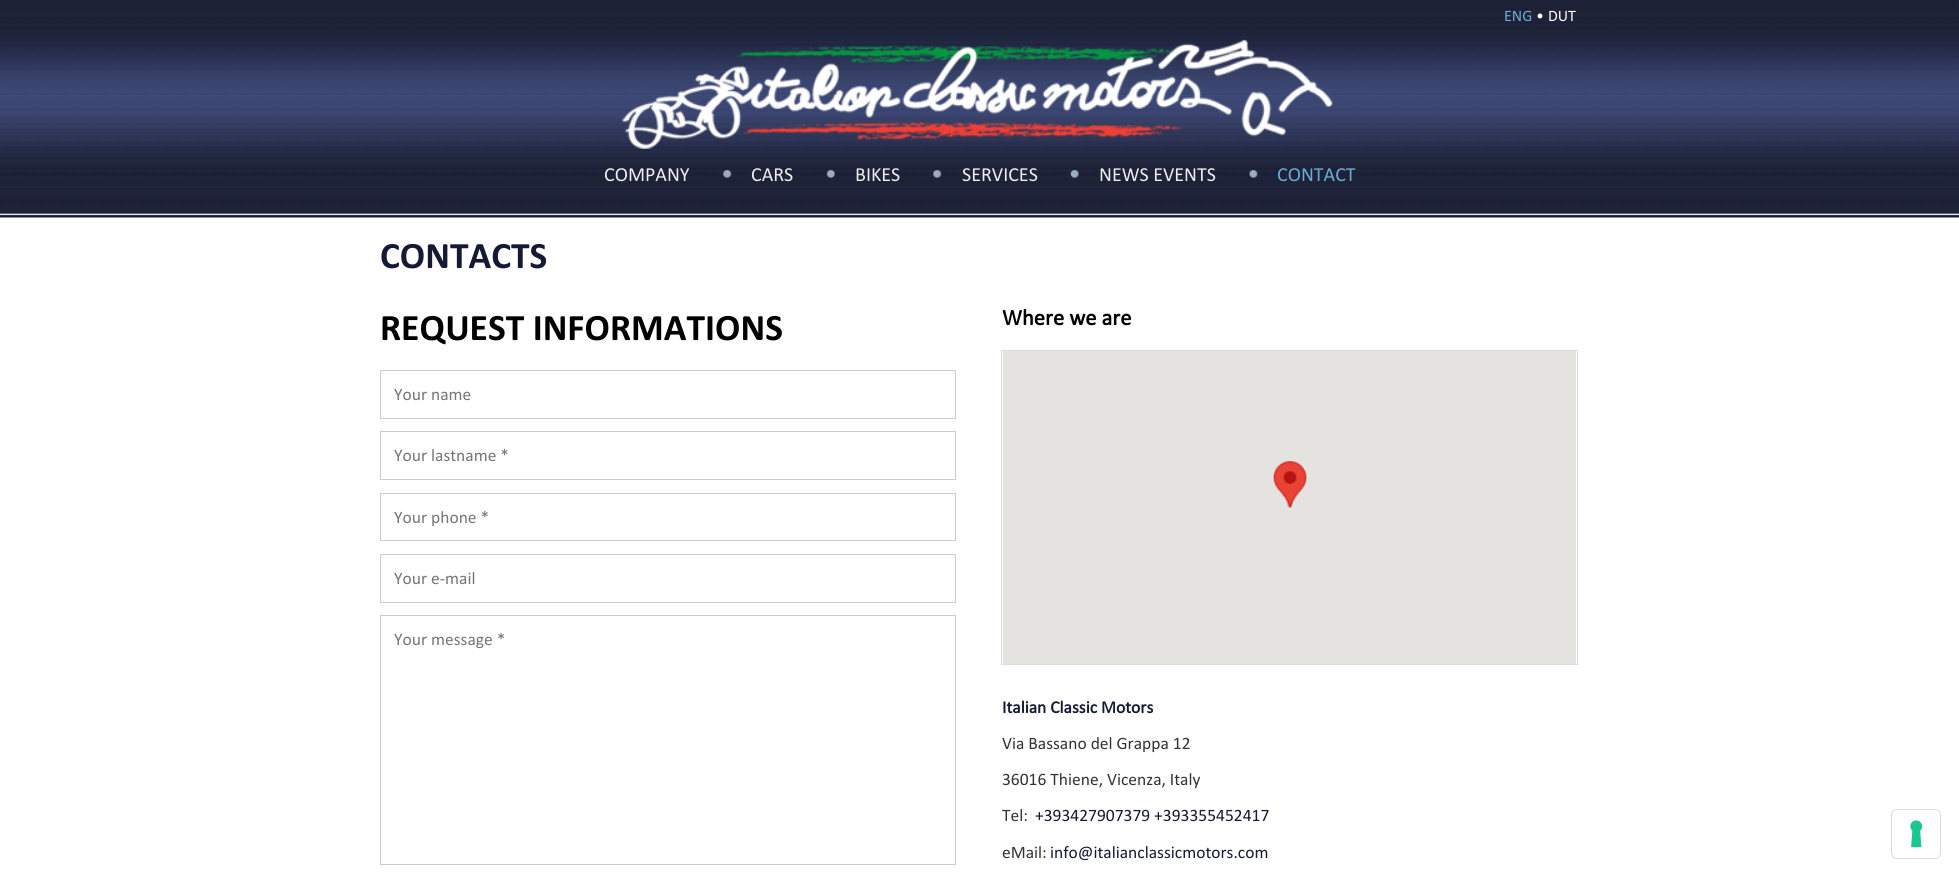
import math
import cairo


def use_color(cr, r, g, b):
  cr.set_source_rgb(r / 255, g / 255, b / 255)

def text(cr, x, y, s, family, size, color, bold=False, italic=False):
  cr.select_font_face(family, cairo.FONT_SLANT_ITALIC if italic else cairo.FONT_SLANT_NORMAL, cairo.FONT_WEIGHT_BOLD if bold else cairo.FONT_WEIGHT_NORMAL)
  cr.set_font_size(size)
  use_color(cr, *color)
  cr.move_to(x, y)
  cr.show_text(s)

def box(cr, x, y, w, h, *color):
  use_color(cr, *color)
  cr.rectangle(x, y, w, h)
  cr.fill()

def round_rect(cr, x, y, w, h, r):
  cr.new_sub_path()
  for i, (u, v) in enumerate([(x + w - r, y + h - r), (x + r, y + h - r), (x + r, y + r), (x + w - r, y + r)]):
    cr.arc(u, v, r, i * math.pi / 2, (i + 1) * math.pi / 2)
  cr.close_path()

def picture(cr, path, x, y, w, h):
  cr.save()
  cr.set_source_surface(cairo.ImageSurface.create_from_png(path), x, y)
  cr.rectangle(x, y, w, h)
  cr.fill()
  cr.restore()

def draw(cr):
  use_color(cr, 255, 255, 255)
  cr.paint()
  picture(cr, "img_01.png", 0, 0, 1959, 218)
  picture(cr, "img_02.png", 622, 39, 711, 110)
  picture(cr, "img_03.png", 722, 170, 10, 9)
  picture(cr, "img_04.png", 826, 170, 9, 9)
  picture(cr, "img_03.png", 932, 170, 10, 9)
  picture(cr, "img_05.png", 1070, 170, 9, 9)
  picture(cr, "img_06.png", 1248, 170, 10, 9)
  cr.rectangle(380.5, 370.5, 575, 48)
  use_color(cr, 204, 204, 204)
  cr.set_line_width(1)
  cr.stroke()
  cr.rectangle(380.5, 431.5, 575, 48)
  cr.stroke()
  cr.rectangle(380.5, 493.5, 575, 47)
  cr.stroke()
  cr.rectangle(380.5, 554.5, 575, 48)
  cr.stroke()
  cr.rectangle(380.5, 615.5, 575, 249)
  cr.stroke()
  cr.rectangle(1001.5, 350.5, 576, 314)
  use_color(cr, 221, 221, 221)
  cr.stroke()
  box(cr, 1003, 351, 573, 313, 229, 227, 223)
  picture(cr, "img_07.png", 1273, 461, 34, 47)
  round_rect(cr, 1891.5, 809.5, 49, 49, 5.5)
  use_color(cr, 217, 217, 217)
  cr.stroke()
  use_color(cr, 255, 255, 255)
  round_rect(cr, 1893, 810, 47, 48, 5)
  cr.fill()
  picture(cr, "img_08.png", 1910, 820, 13, 28)
  text(cr, 1504, 21, "ENG", "Calibri", 16, (107, 172, 213))
  text(cr, 1536, 21, "•", "Calibri", 16, (255, 255, 255))
  text(cr, 1548, 21, "DUT", "Calibri", 16, (255, 255, 255))
  text(cr, 604, 181, "COMPANY", "Calibri", 20, (238, 238, 238))
  text(cr, 751, 181, "CARS", "Calibri", 20, (238, 238, 238))
  text(cr, 855, 181, "BIKES", "Calibri", 20, (238, 238, 238))
  text(cr, 962, 181, "SERVICES", "Calibri", 20, (238, 238, 238))
  text(cr, 1099, 181, "NEWS EVENTS", "Calibri", 20, (238, 238, 238))
  text(cr, 1277, 181, "CONTACT", "Calibri", 20, (107, 172, 213))
  text(cr, 380, 268, "CONTACTS", "Calibri", 37.5, (20, 26, 52), bold=True)
  text(cr, 380, 340, "REQUEST INFORMATIONS", "Calibri", 37.5, (0, 0, 0), bold=True)
  text(cr, 394, 400, "Your name", "Calibri", 17.5, (117, 117, 117))
  text(cr, 394, 461, "Your lastname *", "Calibri", 17.5, (117, 117, 117))
  text(cr, 394, 523, "Your phone *", "Calibri", 17.5, (117, 117, 117))
  text(cr, 394, 584, "Your e-mail", "Calibri", 17.5, (117, 117, 117))
  text(cr, 394, 645, "Your message *", "Calibri", 17.5, (117, 117, 117))
  text(cr, 1002, 325, "Where we are", "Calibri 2", 22.5, (0, 0, 0), bold=True)
  text(cr, 1002, 713, "Italian Classic Motors", "Calibri 2", 17.5, (20, 26, 52), bold=True)
  text(cr, 1002, 749, "Via Bassano del Grappa 12", "Calibri", 17.5, (51, 51, 51))
  text(cr, 1002, 785, "36016 Thiene, Vicenza, Italy", "Calibri", 17.5, (51, 51, 51))
  text(cr, 1002, 821, "Tel:", "Calibri", 17.5, (51, 51, 51))
  text(cr, 1035, 821, "+393427907379 +393355452417", "Calibri", 17.5, (20, 26, 52))
  text(cr, 1002, 858, "eMail:", "Calibri", 17.5, (51, 51, 51))
  text(cr, 1050, 858, "info@italianclassicmotors.com", "Calibri", 17.5, (20, 26, 52))


surface = cairo.ImageSurface(cairo.FORMAT_RGB24, 1959, 877)
cr = cairo.Context(surface)
options = cairo.FontOptions()
options.set_hint_metrics(cairo.HINT_METRICS_OFF)
options.set_hint_style(cairo.HINT_STYLE_NONE)
cr.set_font_options(options)
cr.set_miter_limit(4)
draw(cr)
surface.write_to_png("out.png")
